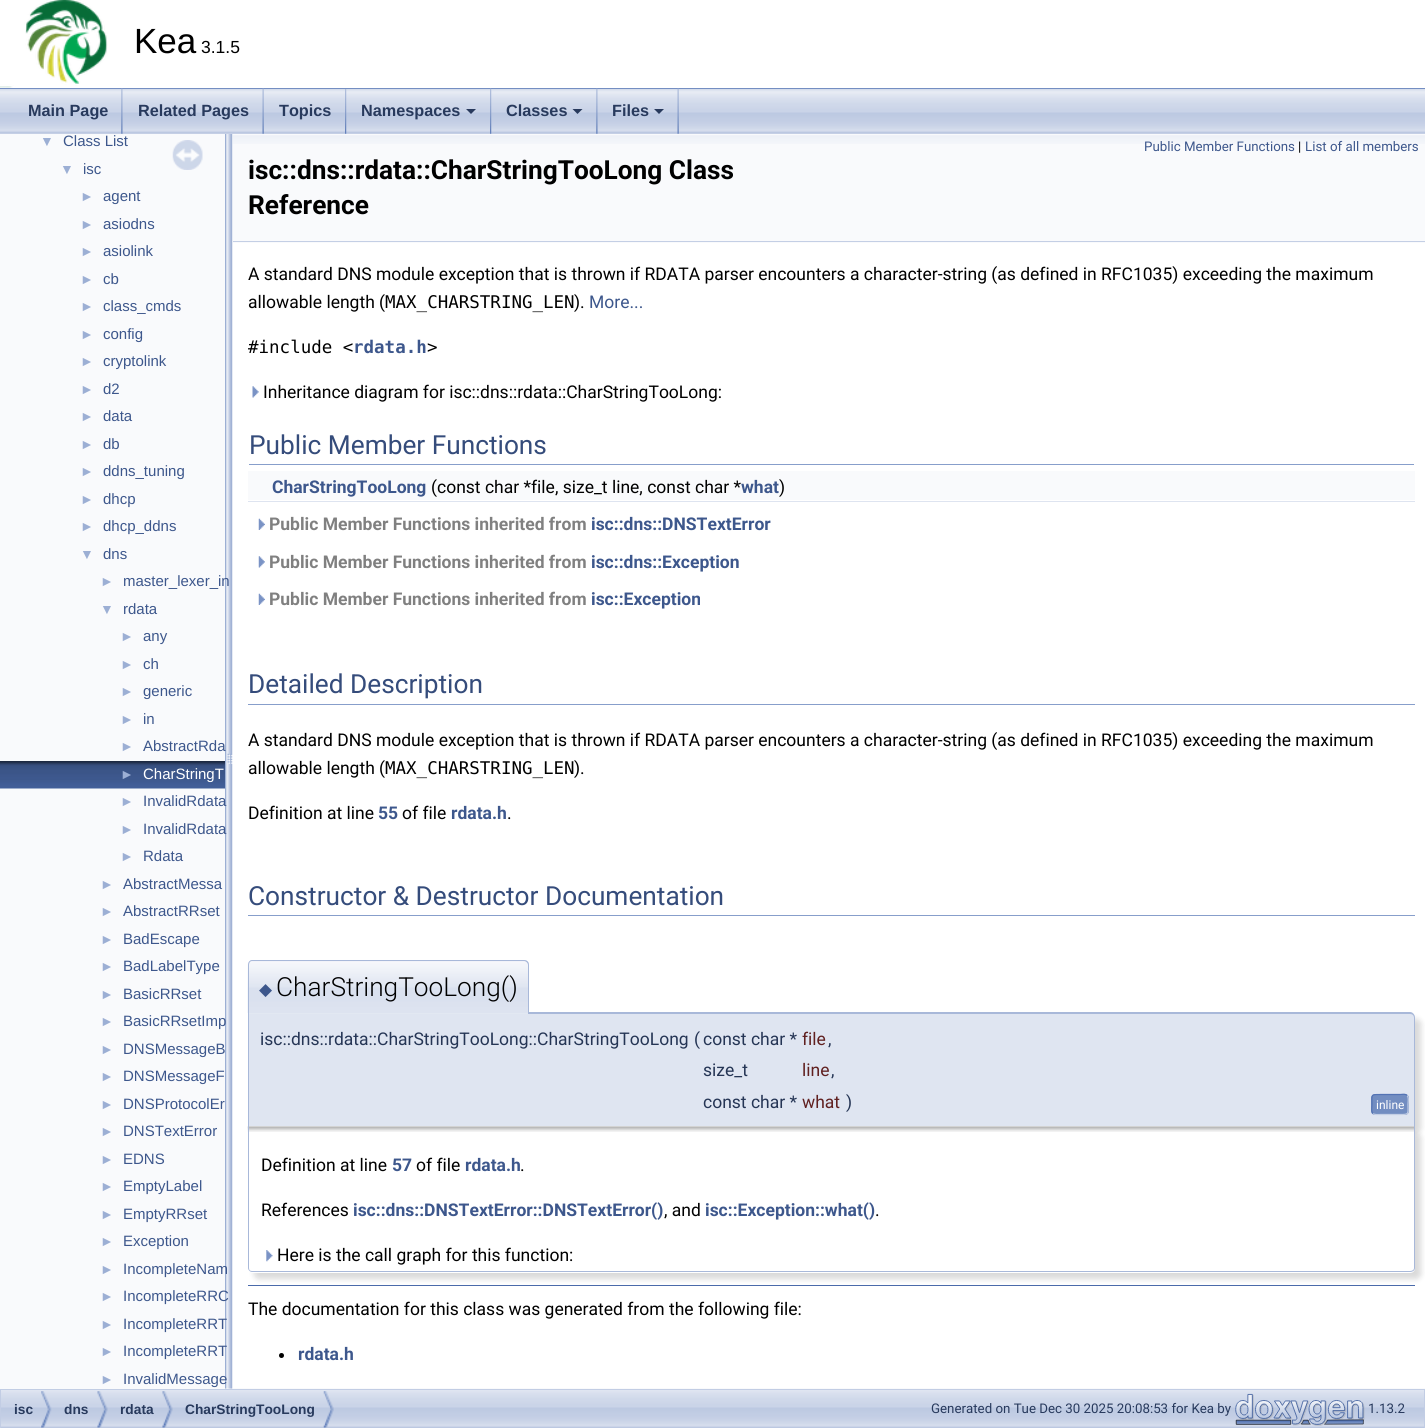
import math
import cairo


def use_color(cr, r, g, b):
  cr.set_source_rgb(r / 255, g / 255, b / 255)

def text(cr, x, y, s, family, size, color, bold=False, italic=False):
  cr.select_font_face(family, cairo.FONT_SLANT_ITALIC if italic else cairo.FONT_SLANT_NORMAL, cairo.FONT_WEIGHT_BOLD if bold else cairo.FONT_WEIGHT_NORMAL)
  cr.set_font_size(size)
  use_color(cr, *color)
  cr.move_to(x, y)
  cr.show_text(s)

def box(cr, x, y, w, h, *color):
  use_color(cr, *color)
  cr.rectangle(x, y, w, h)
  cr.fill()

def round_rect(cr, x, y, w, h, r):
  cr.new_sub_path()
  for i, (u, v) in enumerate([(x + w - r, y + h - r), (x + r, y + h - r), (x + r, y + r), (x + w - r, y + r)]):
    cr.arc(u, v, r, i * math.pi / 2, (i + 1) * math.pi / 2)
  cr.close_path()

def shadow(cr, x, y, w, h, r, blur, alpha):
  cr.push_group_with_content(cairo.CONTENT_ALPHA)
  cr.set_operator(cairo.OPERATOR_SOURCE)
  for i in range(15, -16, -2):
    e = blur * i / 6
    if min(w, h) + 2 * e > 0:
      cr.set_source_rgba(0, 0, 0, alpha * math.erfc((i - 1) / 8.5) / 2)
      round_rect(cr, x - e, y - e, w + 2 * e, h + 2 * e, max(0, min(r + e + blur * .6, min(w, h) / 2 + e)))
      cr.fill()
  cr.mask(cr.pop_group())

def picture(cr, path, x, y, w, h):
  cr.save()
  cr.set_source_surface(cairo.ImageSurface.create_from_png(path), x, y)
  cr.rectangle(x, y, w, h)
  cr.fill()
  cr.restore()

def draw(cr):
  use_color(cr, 255, 255, 255)
  cr.paint()
  box(cr, 0, 88, 1425, 1, 83, 115, 180)
  picture(cr, "img_01.png", 0, 0, 108, 88)
  box(cr, 233, 134, 1192, 109, 249, 250, 252)
  picture(cr, "img_10.png", 232, 135, 1193, 9)
  picture(cr, "img_17.png", 1, 1388, 1424, 40)
  picture(cr, "img_09.png", 225, 133, 8, 1256)
  picture(cr, "img_02.png", 0, 88, 1425, 46)
  picture(cr, "img_03.png", 121, 88, 2, 46)
  picture(cr, "img_04.png", 262, 88, 2, 46)
  picture(cr, "img_05.png", 345, 89, 2, 45)
  picture(cr, "img_06.png", 490, 88, 2, 46)
  use_color(cr, 40, 58, 93)
  cr.new_path()
  cr.move_to(466, 109)
  cr.line_to(476, 109)
  cr.line_to(471, 114)
  cr.close_path()
  cr.fill()
  picture(cr, "img_03.png", 596, 88, 2, 46)
  cr.new_path()
  cr.move_to(572.5, 109)
  cr.line_to(582.5, 109)
  cr.line_to(577.5, 114)
  cr.close_path()
  cr.fill()
  picture(cr, "img_04.png", 677, 88, 2, 46)
  cr.new_path()
  cr.move_to(654, 109)
  cr.line_to(664, 109)
  cr.line_to(659, 114)
  cr.close_path()
  cr.fill()
  box(cr, 0, 134, 225, 1255, 249, 250, 252)
  picture(cr, "img_07.png", 0, 761, 225, 28)
  picture(cr, "img_08.png", 172, 140, 31, 30)
  box(cr, 233, 241, 1192, 1, 196, 207, 229)
  picture(cr, "img_11.png", 252, 386, 7, 12)
  box(cr, 249, 464, 1165, 1, 135, 158, 203)
  box(cr, 248, 471, 1167, 29, 249, 250, 252)
  box(cr, 248, 501, 1167, 1, 222, 228, 240)
  picture(cr, "img_12.png", 258, 518, 7, 12)
  picture(cr, "img_13.png", 258, 556, 7, 12)
  picture(cr, "img_12.png", 258, 593, 7, 12)
  box(cr, 248, 704, 1167, 1, 135, 158, 203)
  box(cr, 248, 915, 1167, 1, 135, 158, 203)
  use_color(cr, 0, 0, 0)
  shadow(cr, 254, 1019, 1167, 114, 5, 3, 0.15)
  use_color(cr, 223, 229, 241)
  cr.new_path()
  cr.move_to(248, 1013)
  cr.line_to(1410, 1013)
  cr.curve_to(1413, 1013, 1415, 1015, 1415, 1018)
  cr.line_to(1415, 1126)
  cr.line_to(248, 1126)
  cr.close_path()
  cr.fill()
  use_color(cr, 168, 184, 217)
  cr.set_fill_rule(cairo.FILL_RULE_EVEN_ODD)
  cr.new_path()
  cr.move_to(248, 1012)
  cr.line_to(1410, 1012)
  cr.curve_to(1413, 1012, 1415, 1015, 1415, 1018)
  cr.line_to(1415, 1126)
  cr.line_to(248, 1126)
  cr.close_path()
  cr.move_to(249, 1014)
  cr.line_to(1410, 1014)
  cr.curve_to(1412, 1014, 1414, 1015, 1414, 1018)
  cr.line_to(1414, 1126)
  cr.line_to(249, 1126)
  cr.close_path()
  cr.fill()
  use_color(cr, 226, 232, 242)
  cr.new_path()
  cr.move_to(253, 960)
  cr.line_to(524, 960)
  cr.curve_to(527, 960, 529, 962, 529, 965)
  cr.line_to(529, 1014)
  cr.line_to(248, 1014)
  cr.line_to(248, 965)
  cr.curve_to(248, 962, 250, 960, 253, 960)
  cr.close_path()
  cr.fill()
  picture(cr, "img_14.png", 247, 961, 282, 52)
  use_color(cr, 168, 184, 217)
  cr.new_path()
  cr.move_to(252, 960)
  cr.line_to(524, 960)
  cr.curve_to(527, 960, 529, 962, 529, 965)
  cr.line_to(529, 1014)
  cr.line_to(248, 1014)
  cr.line_to(248, 965)
  cr.curve_to(248, 962, 250, 960, 252, 960)
  cr.close_path()
  cr.move_to(252, 961)
  cr.line_to(524, 961)
  cr.curve_to(526, 961, 528, 963, 528, 965)
  cr.line_to(528, 1014)
  cr.line_to(249, 1014)
  cr.line_to(249, 965)
  cr.curve_to(249, 963, 250, 961, 252, 961)
  cr.close_path()
  cr.fill()
  use_color(cr, 114, 141, 193)
  round_rect(cr, 1371, 1094, 38, 21, 4)
  cr.fill()
  cr.new_path()
  cr.move_to(1407, 1095.5)
  cr.curve_to(1409, 1097, 1408, 1102.5, 1408, 1104.5)
  cr.curve_to(1408, 1114, 1409.5, 1114.5, 1400, 1114.5)
  cr.line_to(1380, 1114.5)
  cr.curve_to(1378.5, 1114.5, 1374.5, 1115, 1373, 1113.5)
  use_color(cr, 196, 207, 229)
  cr.set_line_width(1.2)
  cr.stroke()
  cr.new_path()
  cr.move_to(1373, 1113.5)
  cr.curve_to(1371, 1111.5, 1372, 1106.5, 1372, 1104.5)
  cr.curve_to(1372, 1094.5, 1370.5, 1094.5, 1380, 1094.5)
  cr.line_to(1400, 1094.5)
  cr.curve_to(1401.5, 1094.5, 1405.5, 1093.5, 1407, 1095.5)
  use_color(cr, 83, 115, 180)
  cr.stroke()
  use_color(cr, 0, 0, 0)
  shadow(cr, 254, 1133, 1167, 146, 5, 3, 0.15)
  use_color(cr, 255, 255, 255)
  cr.new_path()
  cr.move_to(248, 1126)
  cr.line_to(1415, 1126)
  cr.line_to(1415, 1268)
  cr.curve_to(1415, 1271, 1413, 1273, 1410, 1273)
  cr.line_to(253, 1273)
  cr.curve_to(250, 1273, 248, 1271, 248, 1268)
  cr.close_path()
  cr.fill()
  picture(cr, "img_15.png", 247, 1126, 1167, 6)
  use_color(cr, 168, 184, 217)
  cr.new_path()
  cr.move_to(248, 1126)
  cr.line_to(1415, 1126)
  cr.line_to(1415, 1268)
  cr.curve_to(1415, 1270, 1413, 1272, 1410, 1272)
  cr.line_to(252, 1272)
  cr.curve_to(250, 1272, 248, 1270, 248, 1268)
  cr.close_path()
  cr.move_to(249, 1126)
  cr.line_to(1414, 1126)
  cr.line_to(1414, 1268)
  cr.curve_to(1414, 1270, 1412, 1271, 1410, 1271)
  cr.line_to(252, 1271)
  cr.curve_to(250, 1271, 249, 1270, 249, 1268)
  cr.close_path()
  cr.fill()
  picture(cr, "img_16.png", 266, 1250, 7, 12)
  box(cr, 248, 1285, 1167, 1, 74, 106, 170)
  use_color(cr, 0, 0, 0)
  cr.arc(281.5, 1355.5, 2.5, 0, 2 * math.pi)
  cr.fill()
  cr.rectangle(0.5, 1389.5, 1424, 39)
  use_color(cr, 194, 205, 228)
  cr.set_line_width(1)
  cr.stroke()
  picture(cr, "img_18.png", 41, 1391, 11, 37)
  picture(cr, "img_19.png", 97, 1391, 11, 37)
  picture(cr, "img_19.png", 162, 1391, 11, 37)
  picture(cr, "img_20.png", 323, 1391, 11, 37)
  picture(cr, "img_21.png", 1235, 1393, 130, 33)
  text(cr, 134, 53, "Kea", "Liberation Sans", 35, (0, 0, 0))
  text(cr, 201, 53, "3.1.5", "Liberation Sans", 17.5, (0, 0, 0))
  text(cr, 28, 116, "Main Page", "Liberation Sans", 16.25, (40, 58, 93), bold=True)
  text(cr, 138, 116, "Related Pages", "Liberation Sans", 16.25, (40, 58, 93), bold=True)
  text(cr, 279, 116, "Topics", "Liberation Sans", 16.25, (40, 58, 93), bold=True)
  text(cr, 361, 116, "Namespaces", "Liberation Sans", 16.25, (40, 58, 93), bold=True)
  text(cr, 506, 116, "Classes", "Liberation Sans", 16.25, (40, 58, 93), bold=True)
  text(cr, 612, 116, "Files", "Liberation Sans", 16.25, (40, 58, 93), bold=True)
  text(cr, 40, 146, "▼", "Liberation Sans", 14, (156, 175, 212))
  text(cr, 63, 146, "Class List", "Liberation Sans", 15, (61, 87, 140))
  text(cr, 60, 174, "▼", "Liberation Sans", 14, (156, 175, 212))
  text(cr, 83, 174, "isc", "Liberation Sans", 15, (61, 87, 140))
  text(cr, 80, 201, "►", "Liberation Sans", 14, (156, 175, 212))
  text(cr, 103, 201, "agent", "Liberation Sans", 15, (61, 87, 140))
  text(cr, 80, 229, "►", "Liberation Sans", 14, (156, 175, 212))
  text(cr, 103, 229, "asiodns", "Liberation Sans", 15, (61, 87, 140))
  text(cr, 80, 256, "►", "Liberation Sans", 14, (156, 175, 212))
  text(cr, 103, 256, "asiolink", "Liberation Sans", 15, (61, 87, 140))
  text(cr, 80, 284, "►", "Liberation Sans", 14, (156, 175, 212))
  text(cr, 103, 284, "cb", "Liberation Sans", 15, (61, 87, 140))
  text(cr, 80, 311, "►", "Liberation Sans", 14, (156, 175, 212))
  text(cr, 103, 311, "class_cmds", "Liberation Sans", 15, (61, 87, 140))
  text(cr, 80, 339, "►", "Liberation Sans", 14, (156, 175, 212))
  text(cr, 103, 339, "config", "Liberation Sans", 15, (61, 87, 140))
  text(cr, 80, 366, "►", "Liberation Sans", 14, (156, 175, 212))
  text(cr, 103, 366, "cryptolink", "Liberation Sans", 15, (61, 87, 140))
  text(cr, 80, 394, "►", "Liberation Sans", 14, (156, 175, 212))
  text(cr, 103, 394, "d2", "Liberation Sans", 15, (61, 87, 140))
  text(cr, 80, 421, "►", "Liberation Sans", 14, (156, 175, 212))
  text(cr, 103, 421, "data", "Liberation Sans", 15, (61, 87, 140))
  text(cr, 80, 449, "►", "Liberation Sans", 14, (156, 175, 212))
  text(cr, 103, 449, "db", "Liberation Sans", 15, (61, 87, 140))
  text(cr, 80, 476, "►", "Liberation Sans", 14, (156, 175, 212))
  text(cr, 103, 476, "ddns_tuning", "Liberation Sans", 15, (61, 87, 140))
  text(cr, 80, 504, "►", "Liberation Sans", 14, (156, 175, 212))
  text(cr, 103, 504, "dhcp", "Liberation Sans", 15, (61, 87, 140))
  text(cr, 80, 531, "►", "Liberation Sans", 14, (156, 175, 212))
  text(cr, 103, 531, "dhcp_ddns", "Liberation Sans", 15, (61, 87, 140))
  text(cr, 80, 559, "▼", "Liberation Sans", 14, (156, 175, 212))
  text(cr, 103, 559, "dns", "Liberation Sans", 15, (61, 87, 140))
  text(cr, 100, 586, "►", "Liberation Sans", 14, (156, 175, 212))
  text(cr, 123, 586, "master_lexer_in", "Liberation Sans", 15, (61, 87, 140))
  text(cr, 100, 614, "▼", "Liberation Sans", 14, (156, 175, 212))
  text(cr, 123, 614, "rdata", "Liberation Sans", 15, (61, 87, 140))
  text(cr, 120, 641, "►", "Liberation Sans", 14, (156, 175, 212))
  text(cr, 143, 641, "any", "Liberation Sans", 15, (61, 87, 140))
  text(cr, 120, 669, "►", "Liberation Sans", 14, (156, 175, 212))
  text(cr, 143, 669, "ch", "Liberation Sans", 15, (61, 87, 140))
  text(cr, 120, 696, "►", "Liberation Sans", 14, (156, 175, 212))
  text(cr, 143, 696, "generic", "Liberation Sans", 15, (61, 87, 140))
  text(cr, 120, 724, "►", "Liberation Sans", 14, (156, 175, 212))
  text(cr, 143, 724, "in", "Liberation Sans", 15, (61, 87, 140))
  text(cr, 120, 751, "►", "Liberation Sans", 14, (156, 175, 212))
  text(cr, 143, 751, "AbstractRda", "Liberation Sans", 15, (61, 87, 140))
  text(cr, 120, 779, "►", "Liberation Sans", 14, (156, 175, 212))
  text(cr, 143, 779, "CharStringT", "Liberation Sans", 15, (255, 255, 255))
  text(cr, 120, 806, "►", "Liberation Sans", 14, (156, 175, 212))
  text(cr, 143, 806, "InvalidRdata", "Liberation Sans", 15, (61, 87, 140))
  text(cr, 120, 834, "►", "Liberation Sans", 14, (156, 175, 212))
  text(cr, 143, 834, "InvalidRdata", "Liberation Sans", 15, (61, 87, 140))
  text(cr, 120, 861, "►", "Liberation Sans", 14, (156, 175, 212))
  text(cr, 143, 861, "Rdata", "Liberation Sans", 15, (61, 87, 140))
  text(cr, 100, 889, "►", "Liberation Sans", 14, (156, 175, 212))
  text(cr, 123, 889, "AbstractMessa", "Liberation Sans", 15, (61, 87, 140))
  text(cr, 100, 916, "►", "Liberation Sans", 14, (156, 175, 212))
  text(cr, 123, 916, "AbstractRRset", "Liberation Sans", 15, (61, 87, 140))
  text(cr, 100, 944, "►", "Liberation Sans", 14, (156, 175, 212))
  text(cr, 123, 944, "BadEscape", "Liberation Sans", 15, (61, 87, 140))
  text(cr, 100, 971, "►", "Liberation Sans", 14, (156, 175, 212))
  text(cr, 123, 971, "BadLabelType", "Liberation Sans", 15, (61, 87, 140))
  text(cr, 100, 999, "►", "Liberation Sans", 14, (156, 175, 212))
  text(cr, 123, 999, "BasicRRset", "Liberation Sans", 15, (61, 87, 140))
  text(cr, 100, 1026, "►", "Liberation Sans", 14, (156, 175, 212))
  text(cr, 123, 1026, "BasicRRsetImp", "Liberation Sans", 15, (61, 87, 140))
  text(cr, 100, 1054, "►", "Liberation Sans", 14, (156, 175, 212))
  text(cr, 123, 1054, "DNSMessageB", "Liberation Sans", 15, (61, 87, 140))
  text(cr, 100, 1081, "►", "Liberation Sans", 14, (156, 175, 212))
  text(cr, 123, 1081, "DNSMessageF", "Liberation Sans", 15, (61, 87, 140))
  text(cr, 100, 1109, "►", "Liberation Sans", 14, (156, 175, 212))
  text(cr, 123, 1109, "DNSProtocolEr", "Liberation Sans", 15, (61, 87, 140))
  text(cr, 100, 1136, "►", "Liberation Sans", 14, (156, 175, 212))
  text(cr, 123, 1136, "DNSTextError", "Liberation Sans", 15, (61, 87, 140))
  text(cr, 100, 1164, "►", "Liberation Sans", 14, (156, 175, 212))
  text(cr, 123, 1164, "EDNS", "Liberation Sans", 15, (61, 87, 140))
  text(cr, 100, 1191, "►", "Liberation Sans", 14, (156, 175, 212))
  text(cr, 123, 1191, "EmptyLabel", "Liberation Sans", 15, (61, 87, 140))
  text(cr, 100, 1219, "►", "Liberation Sans", 14, (156, 175, 212))
  text(cr, 123, 1219, "EmptyRRset", "Liberation Sans", 15, (61, 87, 140))
  text(cr, 100, 1246, "►", "Liberation Sans", 14, (156, 175, 212))
  text(cr, 123, 1246, "Exception", "Liberation Sans", 15, (61, 87, 140))
  text(cr, 100, 1274, "►", "Liberation Sans", 14, (156, 175, 212))
  text(cr, 123, 1274, "IncompleteNam", "Liberation Sans", 15, (61, 87, 140))
  text(cr, 100, 1301, "►", "Liberation Sans", 14, (156, 175, 212))
  text(cr, 123, 1301, "IncompleteRRC", "Liberation Sans", 15, (61, 87, 140))
  text(cr, 100, 1329, "►", "Liberation Sans", 14, (156, 175, 212))
  text(cr, 123, 1329, "IncompleteRRT", "Liberation Sans", 15, (61, 87, 140))
  text(cr, 100, 1356, "►", "Liberation Sans", 14, (156, 175, 212))
  text(cr, 123, 1356, "IncompleteRRT", "Liberation Sans", 15, (61, 87, 140))
  text(cr, 100, 1384, "►", "Liberation Sans", 14, (156, 175, 212))
  text(cr, 123, 1384, "InvalidMessage", "Liberation Sans", 15, (61, 87, 140))
  text(cr, 1144, 151, "Public Member Functions", "Roboto", 13.3, (61, 87, 140))
  text(cr, 1298, 151, "|", "Roboto", 13.3, (0, 0, 0))
  text(cr, 1305, 151, "List of all members", "Roboto", 13.3, (61, 87, 140))
  text(cr, 248, 179, "isc::dns::rdata::CharStringTooLong Class", "Roboto", 26.25, (0, 0, 0), bold=True)
  text(cr, 248, 214, "Reference", "Roboto", 26.25, (0, 0, 0), bold=True)
  text(cr, 248, 280, "A standard DNS module exception that is thrown if RDATA parser encounters a character-string (as defined in RFC1035) exceeding the maximum", "Roboto", 17.5, (0, 0, 0))
  text(cr, 248, 308, "allowable length (", "Roboto", 17.5, (0, 0, 0))
  text(cr, 385, 308, "MAX_CHARSTRING_LEN", "DejaVu Sans Mono", 17.5, (0, 0, 0))
  text(cr, 574, 308, ").", "Roboto", 17.5, (0, 0, 0))
  text(cr, 589, 308, "More...", "Roboto", 17.5, (61, 87, 140))
  text(cr, 248, 353, "#include <", "DejaVu Sans Mono", 17.5, (0, 0, 0))
  text(cr, 353, 353, "rdata.h", "DejaVu Sans Mono", 17.5, (61, 87, 140), bold=True)
  text(cr, 427, 353, ">", "DejaVu Sans Mono", 17.5, (0, 0, 0))
  text(cr, 263, 398, "Inheritance diagram for isc::dns::rdata::CharStringTooLong:", "Roboto", 17.5, (0, 0, 0))
  text(cr, 249, 454, "Public Member Functions", "Roboto", 26.25, (53, 76, 123))
  text(cr, 272, 493, "CharStringTooLong", "Roboto", 17.5, (61, 87, 140), bold=True)
  text(cr, 431, 493, "(const char *file, size_t line, const char *", "Roboto", 17.5, (0, 0, 0))
  text(cr, 741, 493, "what", "Roboto", 17.5, (61, 87, 140), bold=True)
  text(cr, 779, 493, ")", "Roboto", 17.5, (0, 0, 0))
  text(cr, 269, 530, "Public Member Functions inherited from", "Roboto", 17.5, (128, 128, 128), bold=True)
  text(cr, 591, 530, "isc::dns::DNSTextError", "Roboto", 17.5, (61, 87, 140), bold=True)
  text(cr, 269, 568, "Public Member Functions inherited from", "Roboto", 17.5, (128, 128, 128), bold=True)
  text(cr, 591, 568, "isc::dns::Exception", "Roboto", 17.5, (61, 87, 140), bold=True)
  text(cr, 269, 605, "Public Member Functions inherited from", "Roboto", 17.5, (128, 128, 128), bold=True)
  text(cr, 591, 605, "isc::Exception", "Roboto", 17.5, (61, 87, 140), bold=True)
  text(cr, 248, 693, "Detailed Description", "Roboto", 26.25, (53, 76, 123))
  text(cr, 248, 746, "A standard DNS module exception that is thrown if RDATA parser encounters a character-string (as defined in RFC1035) exceeding the maximum", "Roboto", 17.5, (0, 0, 0))
  text(cr, 248, 774, "allowable length (", "Roboto", 17.5, (0, 0, 0))
  text(cr, 385, 774, "MAX_CHARSTRING_LEN", "DejaVu Sans Mono", 17.5, (0, 0, 0))
  text(cr, 574, 774, ").", "Roboto", 17.5, (0, 0, 0))
  text(cr, 248, 819, "Definition at line", "Roboto", 17.5, (0, 0, 0))
  text(cr, 378, 819, "55", "Roboto", 17.5, (61, 87, 140), bold=True)
  text(cr, 402, 819, "of file", "Roboto", 17.5, (0, 0, 0))
  text(cr, 451, 819, "rdata.h", "Roboto", 17.5, (61, 87, 140), bold=True)
  text(cr, 507, 819, ".", "Roboto", 17.5, (0, 0, 0))
  text(cr, 248, 905, "Constructor & Destructor Documentation", "Roboto", 26.25, (53, 76, 123))
  text(cr, 259, 995, "◆", "DejaVu Sans", 17, (61, 87, 140))
  text(cr, 276, 996, "CharStringTooLong()", "Roboto Light", 26.25, (0, 0, 0))
  text(cr, 260, 1045, "isc::dns::rdata::CharStringTooLong::CharStringTooLong", "Roboto", 17.5, (37, 53, 85))
  text(cr, 694, 1045, "(", "Roboto", 17.5, (37, 53, 85))
  text(cr, 703, 1045, "const char *", "Roboto", 17.5, (37, 53, 85))
  text(cr, 802, 1045, "file", "Roboto", 17.5, (96, 32, 32))
  text(cr, 828, 1045, ",", "Roboto", 17.5, (37, 53, 85))
  text(cr, 703, 1076, "size_t", "Roboto", 17.5, (37, 53, 85))
  text(cr, 802, 1076, "line", "Roboto", 17.5, (96, 32, 32))
  text(cr, 831, 1076, ",", "Roboto", 17.5, (37, 53, 85))
  text(cr, 703, 1108, "const char *", "Roboto", 17.5, (37, 53, 85))
  text(cr, 802, 1108, "what", "Roboto", 17.5, (96, 32, 32))
  text(cr, 846, 1108, ")", "Roboto", 17.5, (37, 53, 85))
  text(cr, 1376, 1109, "inline", "Roboto", 12, (255, 255, 255))
  text(cr, 261, 1171, "Definition at line", "Roboto", 17.5, (0, 0, 0))
  text(cr, 392, 1171, "57", "Roboto", 17.5, (61, 87, 140), bold=True)
  text(cr, 416, 1171, "of file", "Roboto", 17.5, (0, 0, 0))
  text(cr, 465, 1171, "rdata.h", "Roboto", 17.5, (61, 87, 140), bold=True)
  text(cr, 520, 1171, ".", "Roboto", 17.5, (0, 0, 0))
  text(cr, 261, 1216, "References", "Roboto", 17.5, (0, 0, 0))
  text(cr, 353, 1216, "isc::dns::DNSTextError::DNSTextError()", "Roboto", 17.5, (61, 87, 140), bold=True)
  text(cr, 664, 1216, ", and", "Roboto", 17.5, (0, 0, 0))
  text(cr, 705, 1216, "isc::Exception::what()", "Roboto", 17.5, (61, 87, 140), bold=True)
  text(cr, 875, 1216, ".", "Roboto", 17.5, (0, 0, 0))
  text(cr, 277, 1261, "Here is the call graph for this function:", "Roboto", 17.5, (0, 0, 0))
  text(cr, 248, 1315, "The documentation for this class was generated from the following file:", "Roboto", 17.5, (0, 0, 0))
  text(cr, 298, 1360, "rdata.h", "Roboto", 17.5, (61, 87, 140), bold=True)
  text(cr, 14, 1414, "isc", "Liberation Sans", 13.75, (40, 58, 93), bold=True)
  text(cr, 64, 1414, "dns", "Liberation Sans", 13.75, (40, 58, 93), bold=True)
  text(cr, 120, 1414, "rdata", "Liberation Sans", 13.75, (40, 58, 93), bold=True)
  text(cr, 185, 1414, "CharStringTooLong", "Liberation Sans", 13.75, (40, 58, 93), bold=True)
  text(cr, 931, 1413, "Generated on Tue Dec 30 2025 20:08:53 for Kea by", "Roboto", 13.3, (40, 58, 93))
  text(cr, 1368, 1413, "1.13.2", "Roboto", 13.3, (40, 58, 93))


surface = cairo.ImageSurface(cairo.FORMAT_RGB24, 1425, 1428)
cr = cairo.Context(surface)
options = cairo.FontOptions()
options.set_hint_metrics(cairo.HINT_METRICS_OFF)
options.set_hint_style(cairo.HINT_STYLE_NONE)
cr.set_font_options(options)
cr.set_miter_limit(4)
draw(cr)
surface.write_to_png("out.png")
